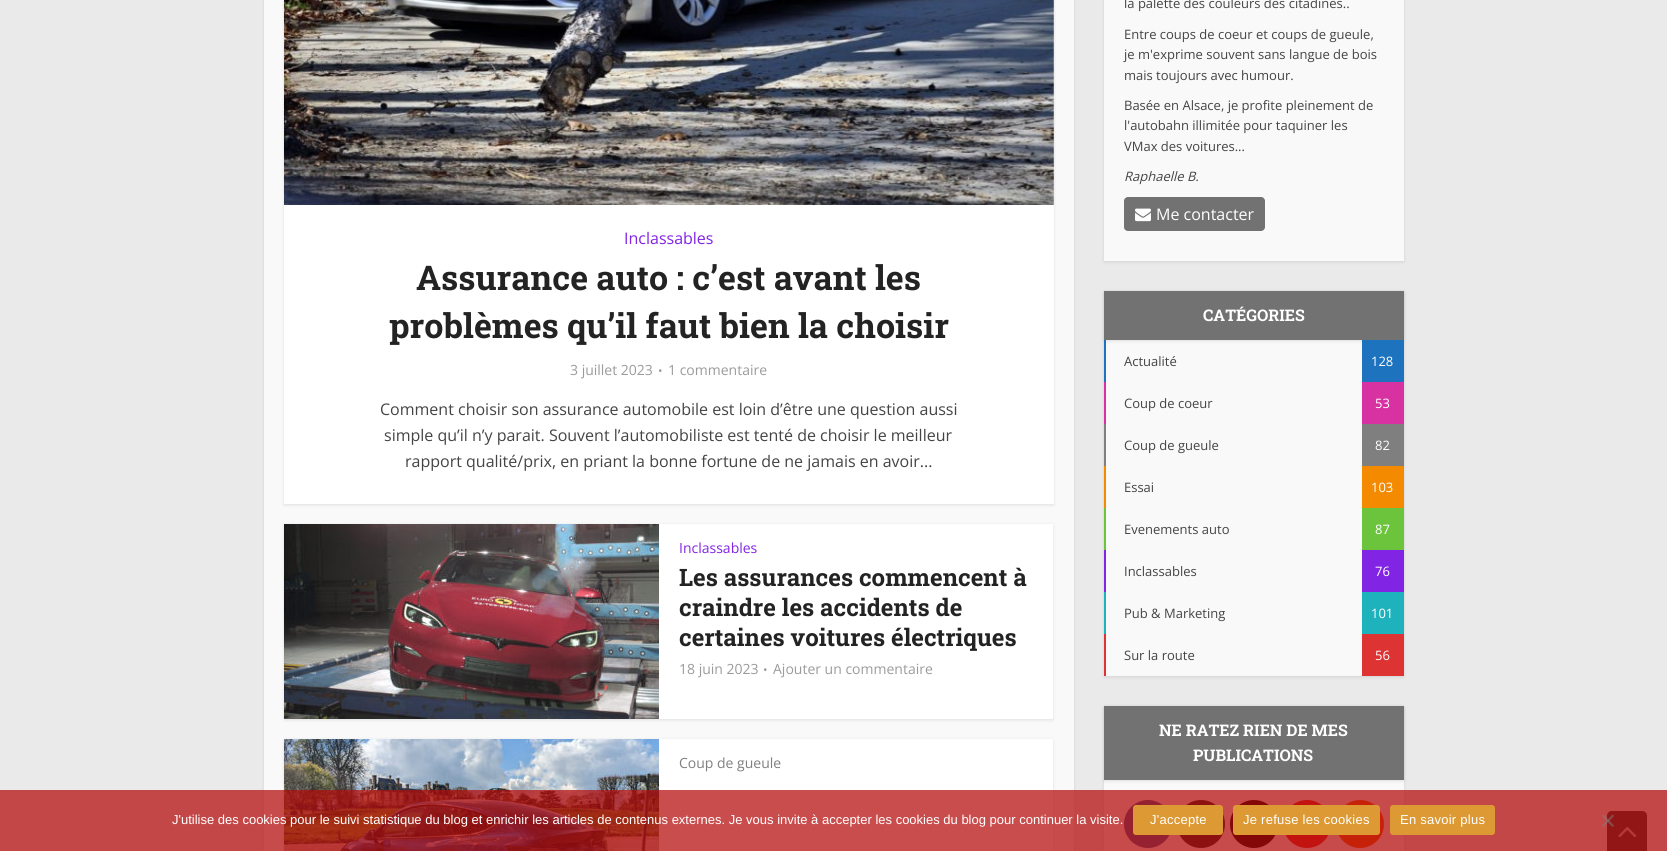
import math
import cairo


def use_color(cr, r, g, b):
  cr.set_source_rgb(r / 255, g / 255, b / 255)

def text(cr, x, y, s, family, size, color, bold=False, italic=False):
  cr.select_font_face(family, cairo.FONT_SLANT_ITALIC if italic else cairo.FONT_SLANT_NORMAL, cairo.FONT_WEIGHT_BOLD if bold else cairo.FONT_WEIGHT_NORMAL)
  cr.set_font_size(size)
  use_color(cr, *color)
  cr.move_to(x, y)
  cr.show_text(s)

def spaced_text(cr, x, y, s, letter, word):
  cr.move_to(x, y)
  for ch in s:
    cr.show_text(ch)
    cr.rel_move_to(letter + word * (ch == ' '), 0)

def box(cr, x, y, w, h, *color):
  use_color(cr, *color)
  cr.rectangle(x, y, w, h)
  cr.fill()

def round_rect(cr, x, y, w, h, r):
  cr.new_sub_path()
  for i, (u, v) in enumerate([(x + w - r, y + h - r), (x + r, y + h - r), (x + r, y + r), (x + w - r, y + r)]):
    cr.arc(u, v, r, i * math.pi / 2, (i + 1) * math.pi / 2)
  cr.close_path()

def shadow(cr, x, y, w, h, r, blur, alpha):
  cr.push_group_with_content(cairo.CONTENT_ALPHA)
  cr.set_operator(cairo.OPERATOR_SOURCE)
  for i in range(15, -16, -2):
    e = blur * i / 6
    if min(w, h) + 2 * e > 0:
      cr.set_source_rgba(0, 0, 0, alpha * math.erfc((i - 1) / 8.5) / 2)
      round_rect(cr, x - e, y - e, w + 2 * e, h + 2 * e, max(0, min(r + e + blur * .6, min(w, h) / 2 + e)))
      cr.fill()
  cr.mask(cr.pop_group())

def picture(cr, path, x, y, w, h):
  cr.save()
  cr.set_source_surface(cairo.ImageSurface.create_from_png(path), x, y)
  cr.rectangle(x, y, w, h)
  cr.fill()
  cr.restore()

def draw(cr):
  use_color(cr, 234, 234, 234)
  cr.paint()
  use_color(cr, 0, 0, 0)
  shadow(cr, 264, -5, 810, 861, 0, 1.5, 0.1)
  box(cr, 264, 0, 810, 851, 249, 249, 249)
  use_color(cr, 0, 0, 0)
  shadow(cr, 284, -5, 770, 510, 0, 1.5, 0.1)
  box(cr, 284, 0, 770, 504, 255, 255, 255)
  picture(cr, "img_01.png", 284, 0, 770, 205)
  use_color(cr, 0, 0, 0)
  shadow(cr, 284, 525, 769, 195, 0, 1.5, 0.1)
  box(cr, 659, 524, 394, 195, 255, 255, 255)
  picture(cr, "img_02.png", 284, 524, 375, 195)
  use_color(cr, 0, 0, 0)
  shadow(cr, 284, 740, 769, 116, 0, 1.5, 0.1)
  box(cr, 659, 739, 394, 112, 255, 255, 255)
  picture(cr, "img_03.png", 284, 739, 375, 112)
  use_color(cr, 0, 0, 0)
  shadow(cr, 1104, -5, 300, 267, 0, 1.5, 0.1)
  box(cr, 1104, 0, 300, 261, 249, 249, 249)
  use_color(cr, 114, 114, 114)
  round_rect(cr, 1124, 197, 141, 34, 4)
  cr.fill()
  picture(cr, "img_04.png", 1135, 208, 16, 14)
  use_color(cr, 0, 0, 0)
  shadow(cr, 1104, 292, 300, 385, 0, 1.5, 0.1)
  box(cr, 1106, 340, 256, 336, 249, 249, 249)
  use_color(cr, 0, 0, 0)
  shadow(cr, 1104, 292, 300, 49, 0, 1.5, 0.1)
  box(cr, 1104, 291, 300, 49, 114, 114, 114)
  box(cr, 1104, 340, 2, 42, 30, 115, 190)
  box(cr, 1362, 340, 42, 42, 30, 115, 190)
  box(cr, 1104, 382, 2, 42, 216, 49, 161)
  box(cr, 1362, 382, 42, 42, 216, 49, 161)
  box(cr, 1104, 424, 2, 42, 127, 127, 127)
  box(cr, 1362, 424, 42, 42, 127, 127, 127)
  box(cr, 1104, 466, 2, 42, 244, 138, 0)
  box(cr, 1362, 466, 42, 42, 244, 138, 0)
  box(cr, 1104, 508, 2, 42, 108, 196, 60)
  box(cr, 1362, 508, 42, 42, 108, 196, 60)
  box(cr, 1104, 550, 2, 42, 130, 36, 227)
  box(cr, 1362, 550, 42, 42, 130, 36, 227)
  box(cr, 1104, 592, 2, 42, 30, 178, 188)
  box(cr, 1362, 592, 42, 42, 30, 178, 188)
  box(cr, 1104, 634, 2, 42, 221, 51, 51)
  box(cr, 1362, 634, 42, 42, 221, 51, 51)
  use_color(cr, 0, 0, 0)
  shadow(cr, 1104, 707, 300, 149, 0, 1.5, 0.1)
  box(cr, 1104, 780, 300, 71, 249, 249, 249)
  use_color(cr, 0, 0, 0)
  shadow(cr, 1104, 707, 300, 74, 0, 1.5, 0.1)
  box(cr, 1104, 706, 300, 74, 114, 114, 114)
  use_color(cr, 62, 91, 152)
  cr.arc(1148, 824, 24, 0, 2 * math.pi)
  cr.fill()
  use_color(cr, 34, 34, 34)
  cr.arc(1201, 824, 24, 0, 2 * math.pi)
  cr.fill()
  use_color(cr, 0, 0, 0)
  cr.arc(1254, 824, 24, 0, 2 * math.pi)
  cr.fill()
  use_color(cr, 224, 42, 32)
  cr.arc(1307, 824, 24, 0, 2 * math.pi)
  cr.fill()
  use_color(cr, 242, 97, 9)
  cr.arc(1360, 824, 24, 0, 2 * math.pi)
  cr.fill()
  use_color(cr, 50, 50, 50)
  cr.new_path()
  cr.move_to(1612, 811)
  cr.line_to(1642, 811)
  cr.curve_to(1645, 811, 1647, 813, 1647, 816)
  cr.line_to(1647, 851)
  cr.line_to(1607, 851)
  cr.line_to(1607, 816)
  cr.curve_to(1607, 813, 1609, 811, 1612, 811)
  cr.close_path()
  cr.fill()
  picture(cr, "img_05.png", 1618, 826, 19, 12)
  cr.set_source_rgba(0.714, 0.043, 0.043, 0.73)
  cr.rectangle(0, 790, 1667, 61)
  cr.fill()
  use_color(cr, 221, 153, 51)
  round_rect(cr, 1133, 805, 90, 30, 3)
  cr.fill()
  round_rect(cr, 1233, 805, 147, 30, 3)
  cr.fill()
  round_rect(cr, 1390, 805, 105, 30, 3)
  cr.fill()
  cr.set_source_rgba(0.502, 0.502, 0.502, 0.5)
  cr.new_path()
  cr.move_to(1612.5, 814.5)
  cr.line_to(1614, 816)
  cr.line_to(1603.5, 827)
  cr.line_to(1602, 825.5)
  cr.close_path()
  cr.fill()
  cr.new_path()
  cr.move_to(1602, 816)
  cr.line_to(1603.5, 814.5)
  cr.line_to(1614, 825.5)
  cr.line_to(1612.5, 827)
  cr.close_path()
  cr.fill()
  text(cr, 624, 244, "Inclassables", "Open Sans", 16, (130, 36, 227))
  text(cr, 416, 290, "Assurance auto : c’est avant les", "Roboto Slab", 34, (35, 35, 35), bold=True)
  text(cr, 389, 338, "problèmes qu’il faut bien la choisir", "Roboto Slab", 34, (35, 35, 35), bold=True)
  text(cr, 570, 375, "3 juillet 2023", "Open Sans", 14, (155, 155, 155))
  text(cr, 658, 375, "•", "Open Sans", 12, (155, 155, 155))
  text(cr, 668, 375, "1 commentaire", "Open Sans", 14, (155, 155, 155))
  text(cr, 380, 415, "Comment choisir son assurance automobile est loin d’être une question aussi", "Open Sans", 16, (68, 68, 68))
  text(cr, 384, 441, "simple qu’il n’y parait. Souvent l’automobiliste est tenté de choisir le meilleur", "Open Sans", 16, (68, 68, 68))
  text(cr, 405, 467, "rapport qualité/prix, en priant la bonne fortune de ne jamais en avoir...", "Open Sans", 16, (68, 68, 68))
  text(cr, 679, 553, "Inclassables", "Open Sans", 14, (130, 36, 227))
  text(cr, 679, 586, "Les assurances commencent à", "Roboto Slab", 24, (35, 35, 35), bold=True)
  text(cr, 679, 616, "craindre les accidents de", "Roboto Slab", 24, (35, 35, 35), bold=True)
  text(cr, 679, 646, "certaines voitures électriques", "Roboto Slab", 24, (35, 35, 35), bold=True)
  text(cr, 679, 674, "18 juin 2023", "Open Sans", 14, (155, 155, 155))
  text(cr, 763, 674, "•", "Open Sans", 12, (155, 155, 155))
  text(cr, 773, 674, "Ajouter un commentaire", "Open Sans", 14, (155, 155, 155))
  text(cr, 679, 768, "Coup de gueule", "Open Sans", 14, (127, 127, 127))
  text(cr, 1124, 8, "la palette des couleurs des citadines..", "Open Sans", 13, (68, 68, 68))
  text(cr, 1124, 39, "Entre coups de coeur et coups de gueule,", "Open Sans", 13, (68, 68, 68))
  text(cr, 1124, 59, "je m'exprime souvent sans langue de bois", "Open Sans", 13, (68, 68, 68))
  text(cr, 1124, 80, "mais toujours avec humour.", "Open Sans", 13, (68, 68, 68))
  text(cr, 1124, 110, "Basée en Alsace, je profite pleinement de", "Open Sans", 13, (68, 68, 68))
  text(cr, 1124, 130, "l'autobahn illimitée pour taquiner les", "Open Sans", 13, (68, 68, 68))
  text(cr, 1124, 151, "VMax des voitures...", "Open Sans", 13, (68, 68, 68))
  text(cr, 1124, 181, "Raphaelle B.", "Open Sans", 13, (68, 68, 68), italic=True)
  text(cr, 1156, 220, "Me contacter", "Open Sans", 16, (255, 255, 255))
  text(cr, 1203, 321, "CATÉGORIES", "Roboto Slab", 16, (255, 255, 255), bold=True)
  text(cr, 1124, 366, "Actualité", "Open Sans", 13, (68, 68, 68))
  text(cr, 1371, 366, "128", "Open Sans", 13, (255, 255, 255))
  text(cr, 1124, 408, "Coup de coeur", "Open Sans", 13, (68, 68, 68))
  text(cr, 1375, 408, "53", "Open Sans", 13, (255, 255, 255))
  text(cr, 1124, 450, "Coup de gueule", "Open Sans", 13, (68, 68, 68))
  text(cr, 1375, 450, "82", "Open Sans", 13, (255, 255, 255))
  text(cr, 1124, 492, "Essai", "Open Sans", 13, (68, 68, 68))
  text(cr, 1371, 492, "103", "Open Sans", 13, (255, 255, 255))
  text(cr, 1124, 534, "Evenements auto", "Open Sans", 13, (68, 68, 68))
  text(cr, 1375, 534, "87", "Open Sans", 13, (255, 255, 255))
  text(cr, 1124, 576, "Inclassables", "Open Sans", 13, (68, 68, 68))
  text(cr, 1375, 576, "76", "Open Sans", 13, (255, 255, 255))
  text(cr, 1124, 618, "Pub & Marketing", "Open Sans", 13, (68, 68, 68))
  text(cr, 1371, 618, "101", "Open Sans", 13, (255, 255, 255))
  text(cr, 1124, 660, "Sur la route", "Open Sans", 13, (68, 68, 68))
  text(cr, 1375, 660, "56", "Open Sans", 13, (255, 255, 255))
  text(cr, 1159, 736, "NE RATEZ RIEN DE MES", "Roboto Slab", 16, (255, 255, 255), bold=True)
  text(cr, 1193, 761, "PUBLICATIONS", "Roboto Slab", 16, (255, 255, 255), bold=True)
  text(cr, 172, 824, "J'utilise des cookies pour le suivi statistique du blog et enrichir les articles de contenus externes. Je vous invite à accepter les cookies du blog pour continuer la visite.", "Liberation Sans", 13, (255, 255, 255))
  spaced_text(cr, 1150, 824, "J'accepte", 0.25, 0)
  spaced_text(cr, 1243, 824, "Je refuse les cookies", 0.25, 0)
  spaced_text(cr, 1400, 824, "En savoir plus", 0.25, 0)


surface = cairo.ImageSurface(cairo.FORMAT_RGB24, 1667, 851)
cr = cairo.Context(surface)
options = cairo.FontOptions()
options.set_hint_metrics(cairo.HINT_METRICS_OFF)
options.set_hint_style(cairo.HINT_STYLE_NONE)
cr.set_font_options(options)
cr.set_miter_limit(4)
draw(cr)
surface.write_to_png("out.png")
